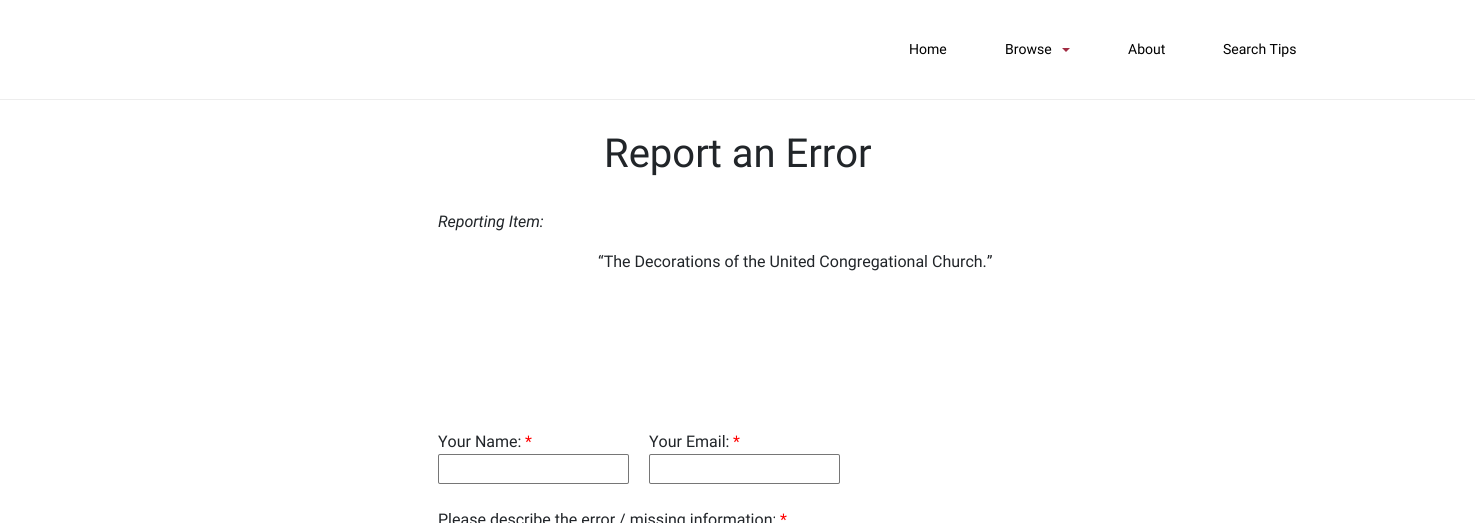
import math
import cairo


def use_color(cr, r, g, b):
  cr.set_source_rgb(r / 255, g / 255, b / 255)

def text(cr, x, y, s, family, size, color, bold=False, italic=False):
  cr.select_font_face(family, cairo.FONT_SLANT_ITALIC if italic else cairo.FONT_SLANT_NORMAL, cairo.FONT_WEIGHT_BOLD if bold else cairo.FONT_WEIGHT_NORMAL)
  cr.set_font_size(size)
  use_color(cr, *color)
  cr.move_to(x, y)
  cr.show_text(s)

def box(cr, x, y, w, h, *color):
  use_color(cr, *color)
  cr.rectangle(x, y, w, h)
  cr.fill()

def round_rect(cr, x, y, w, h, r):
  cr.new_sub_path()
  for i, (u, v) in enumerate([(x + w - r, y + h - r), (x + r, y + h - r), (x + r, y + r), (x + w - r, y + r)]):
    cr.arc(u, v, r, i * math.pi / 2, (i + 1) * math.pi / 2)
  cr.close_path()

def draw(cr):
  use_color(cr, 255, 255, 255)
  cr.paint()
  box(cr, 0, 99, 1475, 1, 237, 237, 237)
  use_color(cr, 161, 43, 66)
  cr.new_path()
  cr.move_to(1062, 48)
  cr.line_to(1070, 48)
  cr.line_to(1066, 52)
  cr.close_path()
  cr.fill()
  round_rect(cr, 438.5, 454.5, 190, 29, 1.5)
  use_color(cr, 118, 118, 118)
  cr.set_line_width(1)
  cr.stroke()
  round_rect(cr, 649.5, 454.5, 190, 29, 1.5)
  cr.stroke()
  text(cr, 909, 54, "Home", "Roboto", 14, (0, 0, 0))
  text(cr, 1005, 54, "Browse", "Roboto", 14, (0, 0, 0))
  text(cr, 1128, 54, "About", "Roboto", 14, (0, 0, 0))
  text(cr, 1223, 54, "Search Tips", "Roboto", 14, (0, 0, 0))
  text(cr, 604, 167, "Report an Error", "Roboto", 40, (33, 37, 41))
  text(cr, 438, 227, "Reporting Item:", "Roboto", 16, (33, 37, 41), italic=True)
  text(cr, 598, 267, "“The Decorations of the United Congregational Church.”", "Roboto", 16, (33, 37, 41))
  text(cr, 438, 447, "Your Name:", "Roboto", 16, (33, 37, 41))
  text(cr, 525, 447, "*", "Roboto", 16, (255, 0, 0))
  text(cr, 649, 447, "Your Email:", "Roboto", 16, (33, 37, 41))
  text(cr, 733, 447, "*", "Roboto", 16, (255, 0, 0))
  text(cr, 438, 525, "Please describe the error / missing information:", "Roboto", 16, (33, 37, 41))
  text(cr, 780, 525, "*", "Roboto", 16, (255, 0, 0))


surface = cairo.ImageSurface(cairo.FORMAT_RGB24, 1475, 523)
cr = cairo.Context(surface)
options = cairo.FontOptions()
options.set_hint_metrics(cairo.HINT_METRICS_OFF)
options.set_hint_style(cairo.HINT_STYLE_NONE)
cr.set_font_options(options)
cr.set_miter_limit(4)
draw(cr)
surface.write_to_png("out.png")
